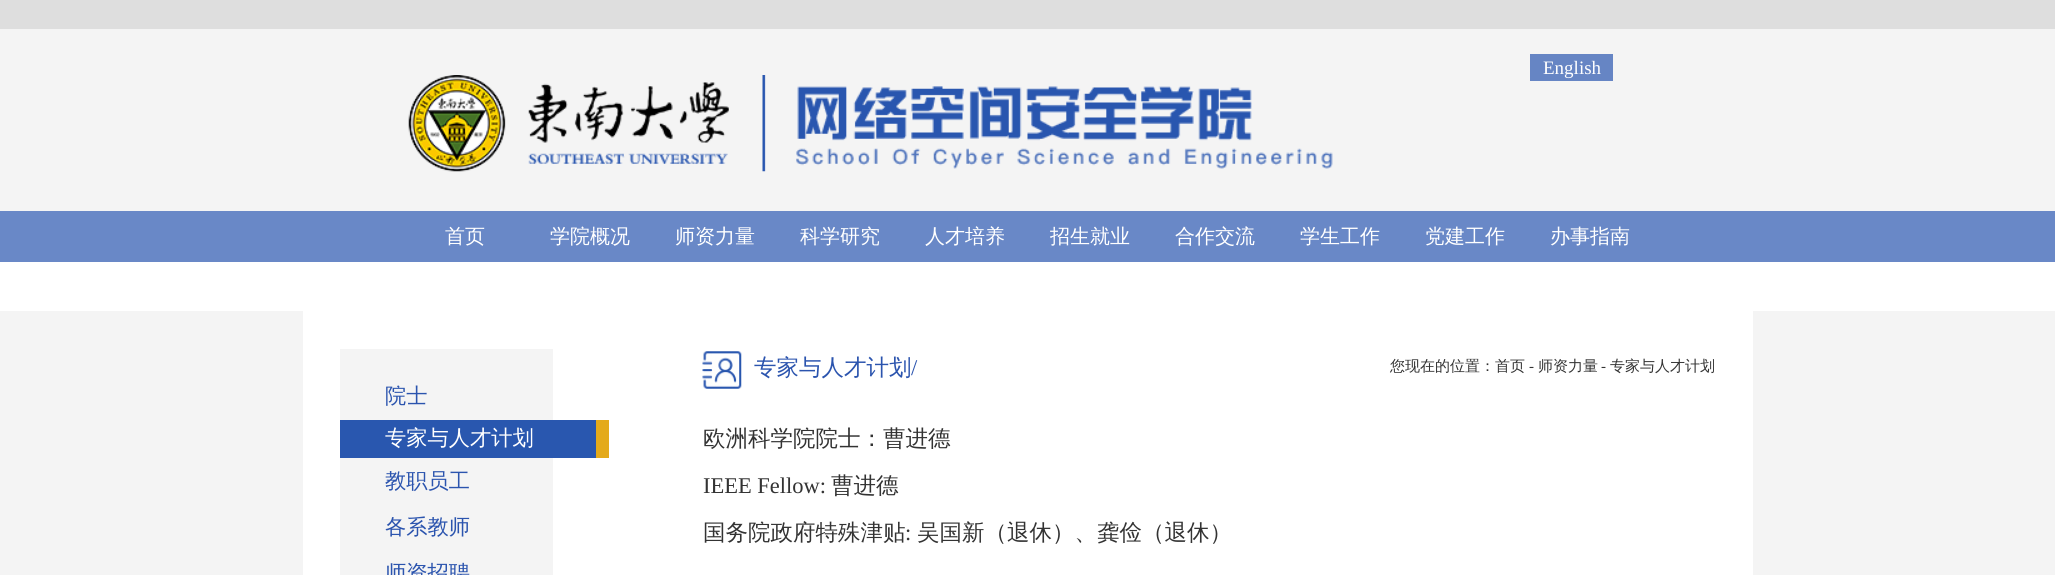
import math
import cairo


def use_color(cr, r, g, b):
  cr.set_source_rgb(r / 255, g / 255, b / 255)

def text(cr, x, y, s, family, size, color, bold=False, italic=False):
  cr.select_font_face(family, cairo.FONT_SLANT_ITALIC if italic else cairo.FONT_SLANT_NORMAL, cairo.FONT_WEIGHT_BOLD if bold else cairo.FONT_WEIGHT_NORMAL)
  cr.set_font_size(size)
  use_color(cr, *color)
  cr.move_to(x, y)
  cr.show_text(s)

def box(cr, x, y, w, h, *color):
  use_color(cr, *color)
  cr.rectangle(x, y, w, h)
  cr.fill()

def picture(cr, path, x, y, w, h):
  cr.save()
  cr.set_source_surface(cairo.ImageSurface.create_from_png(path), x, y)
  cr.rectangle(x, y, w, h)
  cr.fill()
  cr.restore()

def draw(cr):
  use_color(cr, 255, 255, 255)
  cr.paint()
  box(cr, 0, 0, 2055, 29, 222, 222, 222)
  box(cr, 0, 29, 2055, 182, 244, 244, 244)
  box(cr, 1530, 54, 83, 27, 102, 133, 196)
  picture(cr, "img_01.png", 408, 75, 925, 97)
  box(cr, 0, 211, 2055, 51, 105, 136, 199)
  box(cr, 0, 311, 2055, 264, 244, 244, 244)
  box(cr, 303, 311, 1450, 264, 255, 255, 255)
  box(cr, 340, 349, 213, 226, 244, 244, 244)
  box(cr, 340, 420, 256, 38, 41, 87, 175)
  box(cr, 596, 420, 13, 38, 228, 170, 27)
  picture(cr, "img_02.png", 702, 351, 40, 38)
  text(cr, 1543, 74, "English", "Liberation Serif", 19, (255, 255, 255))
  text(cr, 445, 243, "首页", "WenQuanYi Zen Hei Medium", 20, (255, 255, 255))
  text(cr, 550, 243, "学院概况", "WenQuanYi Zen Hei Medium", 20, (255, 255, 255))
  text(cr, 675, 243, "师资力量", "WenQuanYi Zen Hei Medium", 20, (255, 255, 255))
  text(cr, 800, 243, "科学研究", "WenQuanYi Zen Hei Medium", 20, (255, 255, 255))
  text(cr, 925, 243, "人才培养", "WenQuanYi Zen Hei Medium", 20, (255, 255, 255))
  text(cr, 1050, 243, "招生就业", "WenQuanYi Zen Hei Medium", 20, (255, 255, 255))
  text(cr, 1175, 243, "合作交流", "WenQuanYi Zen Hei Medium", 20, (255, 255, 255))
  text(cr, 1300, 243, "学生工作", "WenQuanYi Zen Hei Medium", 20, (255, 255, 255))
  text(cr, 1425, 243, "党建工作", "WenQuanYi Zen Hei Medium", 20, (255, 255, 255))
  text(cr, 1550, 243, "办事指南", "WenQuanYi Zen Hei Medium", 20, (255, 255, 255))
  text(cr, 385, 403, "院士", "WenQuanYi Zen Hei Medium", 21.25, (43, 84, 174))
  text(cr, 385, 445, "专家与人才计划", "WenQuanYi Zen Hei Medium", 21.25, (255, 255, 255))
  text(cr, 385, 488, "教职员工", "WenQuanYi Zen Hei Medium", 21.25, (43, 84, 174))
  text(cr, 385, 534, "各系教师", "WenQuanYi Zen Hei Medium", 21.25, (43, 84, 174))
  text(cr, 385, 580, "师资招聘", "WenQuanYi Zen Hei Medium", 21.25, (43, 84, 174))
  text(cr, 754, 375, "专家与人才计划", "WenQuanYi Zen Hei Medium", 22.5, (43, 84, 174))
  text(cr, 911, 375, "/", "Liberation Serif", 22.5, (43, 84, 174))
  text(cr, 1390, 371, "您现在的位置：首页", "WenQuanYi Zen Hei Medium", 15, (51, 51, 51))
  text(cr, 1529, 371, "-", "Liberation Serif", 15, (51, 51, 51))
  text(cr, 1538, 371, "师资力量", "WenQuanYi Zen Hei Medium", 15, (51, 51, 51))
  text(cr, 1601, 371, "-", "Liberation Serif", 15, (51, 51, 51))
  text(cr, 1610, 371, "专家与人才计划", "WenQuanYi Zen Hei Medium", 15, (51, 51, 51))
  text(cr, 703, 446, "欧洲科学院院士：曹进德", "WenQuanYi Zen Hei Medium", 22.5, (51, 51, 51))
  text(cr, 703, 493, "IEEE Fellow:", "Liberation Serif", 22.5, (51, 51, 51))
  text(cr, 831, 493, "曹进德", "WenQuanYi Zen Hei Medium", 22.5, (51, 51, 51))
  text(cr, 703, 540, "国务院政府特殊津贴", "WenQuanYi Zen Hei Medium", 22.5, (51, 51, 51))
  text(cr, 905, 540, ":", "Liberation Serif", 22.5, (51, 51, 51))
  text(cr, 917, 540, "吴国新（退休）、龚俭（退休）", "WenQuanYi Zen Hei Medium", 22.5, (51, 51, 51))


surface = cairo.ImageSurface(cairo.FORMAT_RGB24, 2055, 575)
cr = cairo.Context(surface)
options = cairo.FontOptions()
options.set_hint_metrics(cairo.HINT_METRICS_OFF)
options.set_hint_style(cairo.HINT_STYLE_NONE)
cr.set_font_options(options)
cr.set_miter_limit(4)
draw(cr)
surface.write_to_png("out.png")
